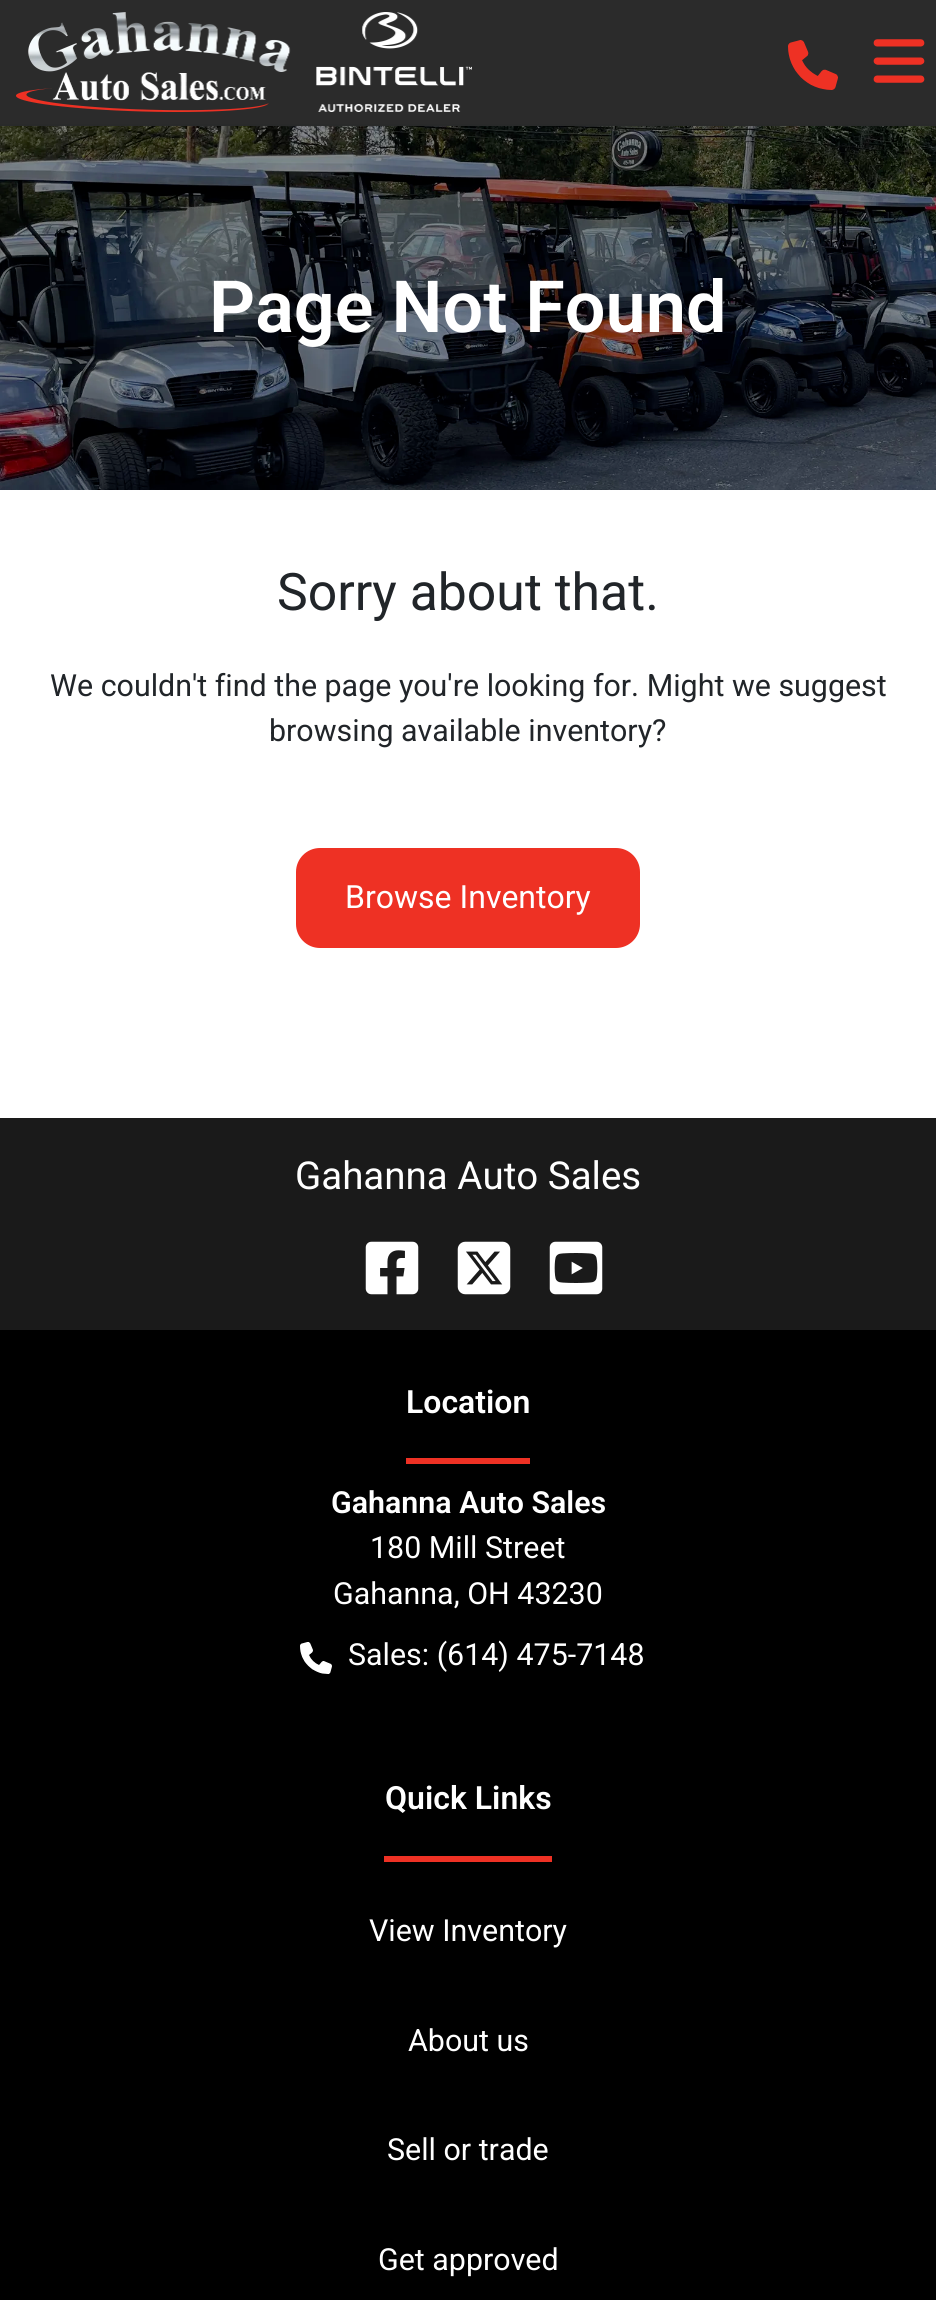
import math
import cairo


def use_color(cr, r, g, b):
  cr.set_source_rgb(r / 255, g / 255, b / 255)

def text(cr, x, y, s, family, size, color, bold=False, italic=False):
  cr.select_font_face(family, cairo.FONT_SLANT_ITALIC if italic else cairo.FONT_SLANT_NORMAL, cairo.FONT_WEIGHT_BOLD if bold else cairo.FONT_WEIGHT_NORMAL)
  cr.set_font_size(size)
  use_color(cr, *color)
  cr.move_to(x, y)
  cr.show_text(s)

def box(cr, x, y, w, h, *color):
  use_color(cr, *color)
  cr.rectangle(x, y, w, h)
  cr.fill()

def round_rect(cr, x, y, w, h, r):
  cr.new_sub_path()
  for i, (u, v) in enumerate([(x + w - r, y + h - r), (x + r, y + h - r), (x + r, y + r), (x + w - r, y + r)]):
    cr.arc(u, v, r, i * math.pi / 2, (i + 1) * math.pi / 2)
  cr.close_path()

def picture(cr, path, x, y, w, h):
  cr.save()
  cr.set_source_surface(cairo.ImageSurface.create_from_png(path), x, y)
  cr.rectangle(x, y, w, h)
  cr.fill()
  cr.restore()

def draw(cr):
  use_color(cr, 255, 255, 255)
  cr.paint()
  box(cr, 0, 0, 936, 124, 43, 43, 43)
  box(cr, 0, 124, 936, 2, 41, 42, 42)
  picture(cr, "img_01.png", 16, 12, 456, 100)
  picture(cr, "img_02.png", 788, 40, 50, 50)
  picture(cr, "img_03.png", 873, 39, 52, 44)
  picture(cr, "img_04.png", 0, 126, 936, 364)
  use_color(cr, 238, 49, 36)
  round_rect(cr, 297, 849, 342, 98, 23)
  cr.fill_preserve()
  cr.stroke()
  box(cr, 0, 1330, 936, 970, 0, 0, 0)
  box(cr, 0, 1118, 936, 212, 26, 26, 26)
  picture(cr, "img_05.png", 365, 1241, 54, 54)
  picture(cr, "img_06.png", 457, 1241, 54, 54)
  picture(cr, "img_07.png", 549, 1241, 54, 54)
  box(cr, 406, 1458, 124, 6, 238, 49, 36)
  picture(cr, "img_08.png", 300, 1642, 32, 32)
  box(cr, 384, 1856, 168, 6, 238, 49, 36)
  text(cr, 209, 332, "Page Not Found", "Roboto SemiBold", 72, (255, 255, 255))
  text(cr, 277, 610, "Sorry about that.", "Roboto", 51.75, (33, 37, 41))
  text(cr, 50, 696, "We couldn't find the page you're looking for. Might we suggest", "Roboto", 30.4, (33, 37, 41))
  text(cr, 269, 741, "browsing available inventory", "Roboto", 30.4, (33, 37, 41))
  text(cr, 652, 741, "?", "Roboto", 30.4, (33, 37, 41))
  text(cr, 345, 908, "Browse Inventory", "Roboto", 32, (255, 255, 255))
  text(cr, 295, 1189, "Gahanna Auto Sales", "Roboto", 38.5, (255, 255, 255))
  text(cr, 406, 1413, "Location", "Roboto SemiBold", 32, (255, 255, 255))
  text(cr, 331, 1513, "Gahanna Auto Sales", "Roboto SemiBold", 30.4, (255, 255, 255))
  text(cr, 370, 1558, "180 Mill Street", "Roboto", 30.4, (255, 255, 255))
  text(cr, 333, 1604, "Gahanna, OH 43230", "Roboto", 30.4, (255, 255, 255))
  text(cr, 348, 1665, "Sales: (614) 475-7148", "Roboto", 30.4, (255, 255, 255))
  text(cr, 385, 1809, "Quick Links", "Roboto SemiBold", 32, (255, 255, 255))
  text(cr, 369, 1941, "View Inventory", "Roboto", 30.4, (255, 255, 255))
  text(cr, 408, 2051, "About us", "Roboto", 30.4, (255, 255, 255))
  text(cr, 387, 2160, "Sell or trade", "Roboto", 30.4, (255, 255, 255))
  text(cr, 378, 2270, "Get approved", "Roboto", 30.4, (255, 255, 255))


surface = cairo.ImageSurface(cairo.FORMAT_RGB24, 936, 2300)
cr = cairo.Context(surface)
options = cairo.FontOptions()
options.set_hint_metrics(cairo.HINT_METRICS_OFF)
options.set_hint_style(cairo.HINT_STYLE_NONE)
cr.set_font_options(options)
cr.set_miter_limit(4)
draw(cr)
surface.write_to_png("out.png")
